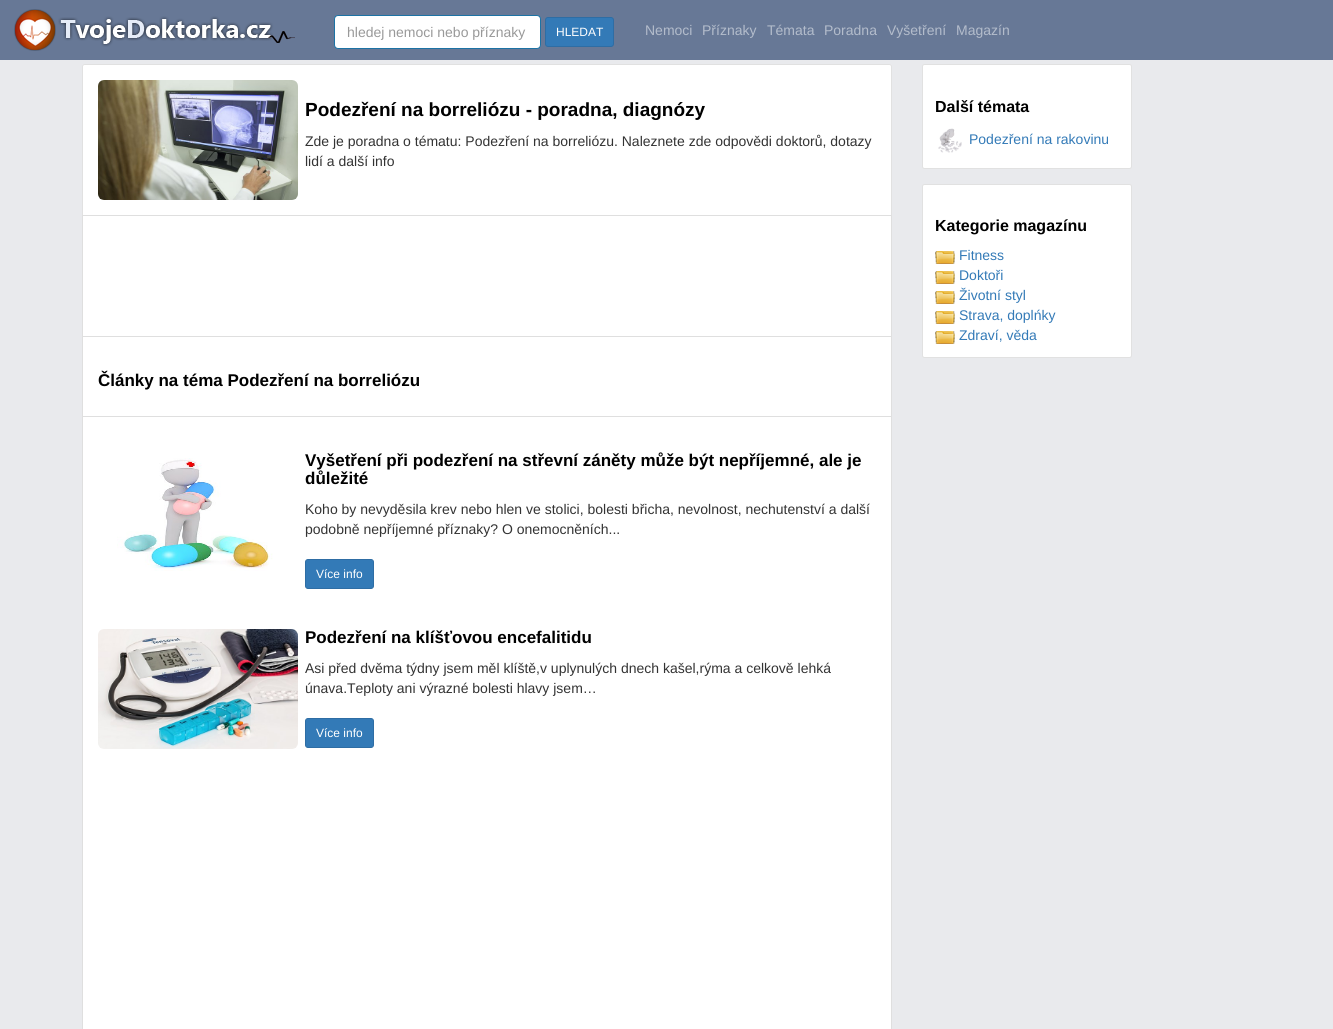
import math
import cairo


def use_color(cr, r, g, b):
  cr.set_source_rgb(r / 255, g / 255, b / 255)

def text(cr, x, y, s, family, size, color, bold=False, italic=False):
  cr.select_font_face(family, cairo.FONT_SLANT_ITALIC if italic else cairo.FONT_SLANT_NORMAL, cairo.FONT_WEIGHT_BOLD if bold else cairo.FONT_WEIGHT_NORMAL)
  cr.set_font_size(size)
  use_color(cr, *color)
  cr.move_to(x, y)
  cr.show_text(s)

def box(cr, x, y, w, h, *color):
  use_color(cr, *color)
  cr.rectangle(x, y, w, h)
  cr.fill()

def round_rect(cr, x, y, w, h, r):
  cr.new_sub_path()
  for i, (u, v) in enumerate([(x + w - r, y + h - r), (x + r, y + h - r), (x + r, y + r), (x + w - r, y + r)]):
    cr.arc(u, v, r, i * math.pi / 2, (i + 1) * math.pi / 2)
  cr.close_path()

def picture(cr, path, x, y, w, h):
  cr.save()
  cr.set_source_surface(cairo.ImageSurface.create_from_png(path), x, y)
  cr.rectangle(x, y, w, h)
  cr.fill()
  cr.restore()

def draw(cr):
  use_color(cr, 233, 234, 237)
  cr.paint()
  box(cr, 0, 0, 1333, 60, 103, 120, 150)
  picture(cr, "img_01.png", 14, 9, 281, 42)
  use_color(cr, 255, 255, 255)
  round_rect(cr, 334.5, 15.5, 206, 33, 3.5)
  cr.fill_preserve()
  use_color(cr, 28, 115, 165)
  cr.set_line_width(1)
  cr.stroke()
  use_color(cr, 51, 122, 183)
  round_rect(cr, 545.5, 17.5, 68, 29, 2.5)
  cr.fill_preserve()
  use_color(cr, 46, 109, 164)
  cr.stroke()
  use_color(cr, 255, 255, 255)
  cr.new_path()
  cr.move_to(84.5, 64)
  cr.line_to(889.5, 64)
  cr.curve_to(891, 64, 892, 65, 892, 66.5)
  cr.line_to(892, 216)
  cr.line_to(82, 216)
  cr.line_to(82, 66.5)
  cr.curve_to(82, 65, 83, 64, 84.5, 64)
  cr.close_path()
  cr.fill()
  cr.new_path()
  cr.move_to(84.5, 64.5)
  cr.line_to(889.5, 64.5)
  cr.curve_to(890.5, 64.5, 891.5, 65.5, 891.5, 66.5)
  cr.line_to(891.5, 215.5)
  cr.line_to(82.5, 215.5)
  cr.line_to(82.5, 66.5)
  cr.curve_to(82.5, 65.5, 83.5, 64.5, 84.5, 64.5)
  cr.close_path()
  cr.set_source_rgba(0, 0, 0, 0.12)
  cr.stroke()
  picture(cr, "img_02.png", 98, 80, 200, 120)
  use_color(cr, 255, 255, 255)
  cr.rectangle(82.5, 215.5, 809, 121)
  cr.fill_preserve()
  use_color(cr, 223, 223, 223)
  cr.stroke()
  use_color(cr, 255, 255, 255)
  cr.rectangle(82.5, 336.5, 809, 80)
  cr.fill_preserve()
  use_color(cr, 223, 223, 223)
  cr.stroke()
  use_color(cr, 255, 255, 255)
  cr.rectangle(82.5, 416.5, 809, 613)
  cr.fill_preserve()
  use_color(cr, 223, 223, 223)
  cr.stroke()
  picture(cr, "img_03.png", 117, 458, 156, 113)
  use_color(cr, 51, 122, 183)
  round_rect(cr, 305.5, 559.5, 68, 29, 2.5)
  cr.fill_preserve()
  use_color(cr, 46, 109, 164)
  cr.stroke()
  picture(cr, "img_04.png", 98, 629, 200, 120)
  use_color(cr, 51, 122, 183)
  round_rect(cr, 305.5, 718.5, 68, 29, 2.5)
  cr.fill_preserve()
  use_color(cr, 46, 109, 164)
  cr.stroke()
  use_color(cr, 255, 255, 255)
  round_rect(cr, 922, 64, 210, 105, 2.5)
  cr.fill()
  round_rect(cr, 922.5, 64.5, 209, 104, 2)
  cr.set_source_rgba(0, 0, 0, 0.12)
  cr.stroke()
  picture(cr, "img_05.png", 938, 128, 24, 25)
  use_color(cr, 255, 255, 255)
  round_rect(cr, 922, 184, 210, 174, 2.5)
  cr.fill()
  round_rect(cr, 922.5, 184.5, 209, 173, 2)
  cr.set_source_rgba(0, 0, 0, 0.12)
  cr.stroke()
  picture(cr, "img_06.png", 935, 251, 20, 13)
  picture(cr, "img_06.png", 935, 271, 20, 13)
  picture(cr, "img_06.png", 935, 291, 20, 13)
  picture(cr, "img_06.png", 935, 311, 20, 13)
  picture(cr, "img_06.png", 935, 331, 20, 13)
  text(cr, 347, 37, "hledej nemoci nebo příznaky", "Liberation Sans", 14, (153, 153, 153))
  text(cr, 556, 36, "HLEDAT", "Liberation Sans", 12, (255, 255, 255))
  text(cr, 645, 35, "Nemoci", "Liberation Sans", 14, (179, 188, 203))
  text(cr, 702, 35, "Příznaky", "Liberation Sans", 14, (179, 188, 203))
  text(cr, 767, 35, "Témata", "Liberation Sans", 14, (179, 188, 203))
  text(cr, 824, 35, "Poradna", "Liberation Sans", 14, (179, 188, 203))
  text(cr, 887, 35, "Vyšetření", "Liberation Sans", 14, (179, 188, 203))
  text(cr, 956, 35, "Magazín", "Liberation Sans", 14, (179, 188, 203))
  text(cr, 305, 116, "Podezření na borreliózu - poradna, diagnózy", "Liberation Sans", 19, (0, 0, 0), bold=True)
  text(cr, 305, 146, "Zde je poradna o tématu: Podezření na borreliózu. Naleznete zde odpovědi doktorů, dotazy", "Liberation Sans", 14, (51, 51, 51))
  text(cr, 305, 166, "lidí a další info", "Liberation Sans", 14, (51, 51, 51))
  text(cr, 98, 386, "Články na téma Podezření na borreliózu", "Liberation Sans", 17, (0, 0, 0), bold=True)
  text(cr, 305, 466, "Vyšetření při podezření na střevní záněty může být nepříjemné, ale je", "Liberation Sans", 17, (0, 0, 0), bold=True)
  text(cr, 305, 484, "důležité", "Liberation Sans", 17, (0, 0, 0), bold=True)
  text(cr, 305, 514, "Koho by nevyděsila krev nebo hlen ve stolici, bolesti břicha, nevolnost, nechutenství a další", "Liberation Sans", 14, (51, 51, 51))
  text(cr, 305, 534, "podobně nepříjemné příznaky? O onemocněních...", "Liberation Sans", 14, (51, 51, 51))
  text(cr, 316, 578, "Více info", "Liberation Sans", 12, (255, 255, 255))
  text(cr, 305, 643, "Podezření na klíšťovou encefalitidu", "Liberation Sans", 17, (0, 0, 0), bold=True)
  text(cr, 305, 673, "Asi před dvěma týdny jsem měl klíště,v uplynulých dnech kašel,rýma a celkově lehká", "Liberation Sans", 14, (51, 51, 51))
  text(cr, 305, 693, "únava.Teploty ani výrazné bolesti hlavy jsem…", "Liberation Sans", 14, (51, 51, 51))
  text(cr, 316, 737, "Více info", "Liberation Sans", 12, (255, 255, 255))
  text(cr, 935, 112, "Další témata", "Liberation Sans", 16, (0, 0, 0), bold=True)
  text(cr, 969, 144, "Podezření na rakovinu", "Liberation Sans", 14, (51, 122, 183))
  text(cr, 935, 231, "Kategorie magazínu", "Liberation Sans", 16, (0, 0, 0), bold=True)
  text(cr, 959, 260, "Fitness", "Liberation Sans", 14, (51, 122, 183))
  text(cr, 959, 280, "Doktoři", "Liberation Sans", 14, (51, 122, 183))
  text(cr, 959, 300, "Životní styl", "Liberation Sans", 14, (51, 122, 183))
  text(cr, 959, 320, "Strava, doplńky", "Liberation Sans", 14, (51, 122, 183))
  text(cr, 959, 340, "Zdraví, věda", "Liberation Sans", 14, (51, 122, 183))


surface = cairo.ImageSurface(cairo.FORMAT_RGB24, 1333, 1029)
cr = cairo.Context(surface)
options = cairo.FontOptions()
options.set_hint_metrics(cairo.HINT_METRICS_OFF)
options.set_hint_style(cairo.HINT_STYLE_NONE)
cr.set_font_options(options)
cr.set_miter_limit(4)
draw(cr)
surface.write_to_png("out.png")
